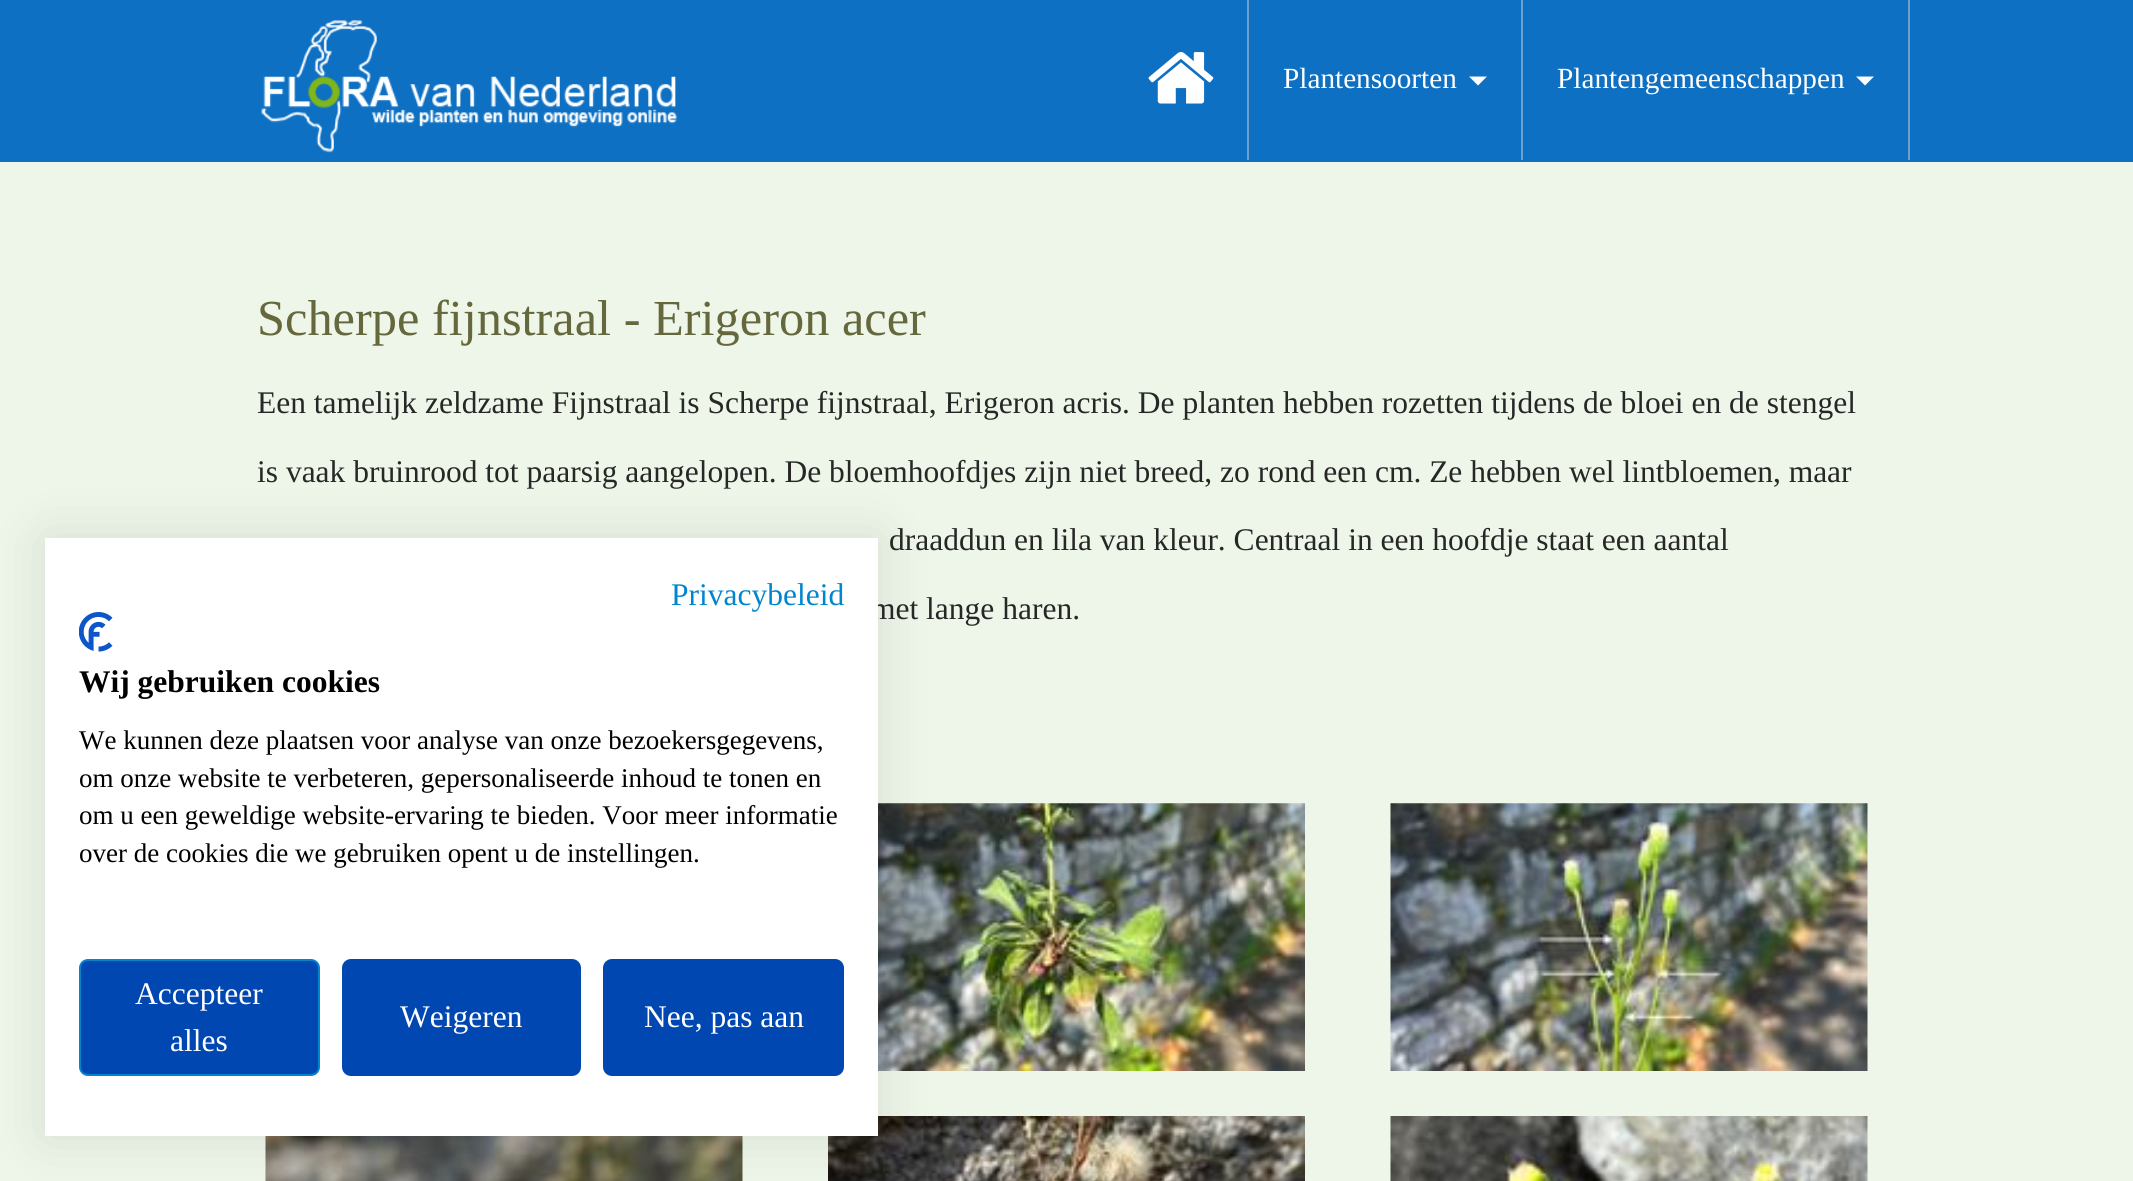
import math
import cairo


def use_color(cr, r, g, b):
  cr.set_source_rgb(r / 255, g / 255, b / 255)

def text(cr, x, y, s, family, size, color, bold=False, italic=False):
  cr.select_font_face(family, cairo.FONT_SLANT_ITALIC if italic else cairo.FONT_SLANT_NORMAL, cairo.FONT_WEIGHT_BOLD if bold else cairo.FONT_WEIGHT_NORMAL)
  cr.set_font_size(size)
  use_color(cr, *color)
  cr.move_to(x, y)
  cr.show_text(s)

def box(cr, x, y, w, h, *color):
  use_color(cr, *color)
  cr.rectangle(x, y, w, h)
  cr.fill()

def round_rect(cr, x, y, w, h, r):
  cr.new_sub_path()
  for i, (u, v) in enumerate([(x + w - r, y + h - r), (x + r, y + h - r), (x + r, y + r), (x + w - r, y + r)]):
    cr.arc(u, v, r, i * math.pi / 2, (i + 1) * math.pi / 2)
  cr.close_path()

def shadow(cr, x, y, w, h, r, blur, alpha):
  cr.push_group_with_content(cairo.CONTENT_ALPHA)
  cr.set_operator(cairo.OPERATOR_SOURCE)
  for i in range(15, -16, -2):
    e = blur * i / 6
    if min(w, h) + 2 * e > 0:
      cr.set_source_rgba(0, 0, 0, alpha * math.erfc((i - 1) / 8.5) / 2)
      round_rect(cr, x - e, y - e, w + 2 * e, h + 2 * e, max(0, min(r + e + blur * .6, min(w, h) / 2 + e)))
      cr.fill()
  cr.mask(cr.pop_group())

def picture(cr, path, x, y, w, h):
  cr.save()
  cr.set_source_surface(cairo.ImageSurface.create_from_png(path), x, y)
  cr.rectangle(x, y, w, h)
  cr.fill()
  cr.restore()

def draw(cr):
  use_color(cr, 237, 246, 232)
  cr.paint()
  box(cr, 0, 0, 2133, 162, 14, 112, 195)
  picture(cr, "img_01.png", 261, 20, 416, 133)
  box(cr, 1908, 0, 2, 160, 109, 160, 204)
  picture(cr, "img_02.png", 1148, 52, 66, 52)
  box(cr, 1247, 0, 2, 160, 109, 160, 204)
  use_color(cr, 255, 255, 255)
  cr.new_path()
  cr.move_to(1469, 76.5)
  cr.line_to(1487, 76.5)
  cr.line_to(1478, 85.5)
  cr.close_path()
  cr.fill()
  box(cr, 1521, 0, 2, 160, 109, 160, 204)
  use_color(cr, 255, 255, 255)
  cr.new_path()
  cr.move_to(1856, 76.5)
  cr.line_to(1874, 76.5)
  cr.line_to(1865, 85.5)
  cr.close_path()
  cr.fill()
  picture(cr, "img_03.png", 878, 803, 427, 268)
  picture(cr, "img_04.png", 1390, 803, 478, 268)
  picture(cr, "img_05.png", 265, 1136, 478, 45)
  picture(cr, "img_06.png", 828, 1116, 477, 65)
  picture(cr, "img_07.png", 1390, 1116, 478, 65)
  use_color(cr, 0, 0, 0)
  shadow(cr, 45, 538, 833, 598, 0, 27, 0.1)
  text(cr, 1283, 88, "Plantensoorten", "Liberation Serif", 29.25, (255, 255, 255))
  text(cr, 1557, 88, "Plantengemeenschappen", "Liberation Serif", 29.25, (255, 255, 255))
  text(cr, 257, 335, "Scherpe fijnstraal - Erigeron acer", "Liberation Serif", 50.4, (101, 103, 60))
  text(cr, 257, 413, "Een tamelijk zeldzame Fijnstraal is Scherpe fijnstraal, Erigeron acris. De planten hebben rozetten tijdens de bloei en de stengel", "Liberation Serif", 31.5, (39, 39, 39))
  text(cr, 257, 482, "is vaak bruinrood tot paarsig aangelopen. De bloemhoofdjes zijn niet breed, zo rond een cm. Ze hebben wel lintbloemen, maar", "Liberation Serif", 31.5, (39, 39, 39))
  text(cr, 889, 550, "draaddun en lila van kleur. Centraal in een hoofdje staat een aantal", "Liberation Serif", 31.5, (39, 39, 39))
  text(cr, 871, 619, "met lange haren.", "Liberation Serif", 31.5, (39, 39, 39))
  box(cr, 45, 538, 833, 598, 255, 255, 255)
  text(cr, 671, 605, "Privacybeleid", "Liberation Serif", 31.5, (0, 133, 207))
  picture(cr, "img_08.png", 79, 612, 34, 40)
  text(cr, 79, 692, "Wij gebruiken cookies", "Liberation Serif", 31.5, (0, 0, 0), bold=True)
  text(cr, 79, 749, "We kunnen deze plaatsen voor analyse van onze bezoekersgegevens,", "Liberation Serif", 27, (0, 0, 0))
  text(cr, 79, 787, "om onze website te verbeteren, gepersonaliseerde inhoud te tonen en", "Liberation Serif", 27, (0, 0, 0))
  text(cr, 79, 824, "om u een geweldige website-ervaring te bieden. Voor meer informatie", "Liberation Serif", 27, (0, 0, 0))
  text(cr, 79, 862, "over de cookies die we gebruiken opent u de instellingen.", "Liberation Serif", 27, (0, 0, 0))
  use_color(cr, 0, 71, 178)
  round_rect(cr, 80, 960, 239, 115, 8)
  cr.fill_preserve()
  use_color(cr, 0, 133, 207)
  cr.stroke()
  text(cr, 135, 1004, "Accepteer", "Liberation Serif", 31.5, (255, 255, 255))
  text(cr, 170, 1051, "alles", "Liberation Serif", 31.5, (255, 255, 255))
  use_color(cr, 0, 71, 178)
  round_rect(cr, 343, 960, 237, 115, 8)
  cr.fill_preserve()
  cr.stroke()
  text(cr, 400, 1027, "Weigeren", "Liberation Serif", 31.5, (255, 255, 255))
  use_color(cr, 0, 71, 178)
  round_rect(cr, 604, 960, 239, 115, 8)
  cr.fill_preserve()
  cr.stroke()
  text(cr, 644, 1027, "Nee, pas aan", "Liberation Serif", 31.5, (255, 255, 255))


surface = cairo.ImageSurface(cairo.FORMAT_RGB24, 2133, 1181)
cr = cairo.Context(surface)
options = cairo.FontOptions()
options.set_hint_metrics(cairo.HINT_METRICS_OFF)
options.set_hint_style(cairo.HINT_STYLE_NONE)
cr.set_font_options(options)
cr.set_miter_limit(4)
draw(cr)
surface.write_to_png("out.png")
